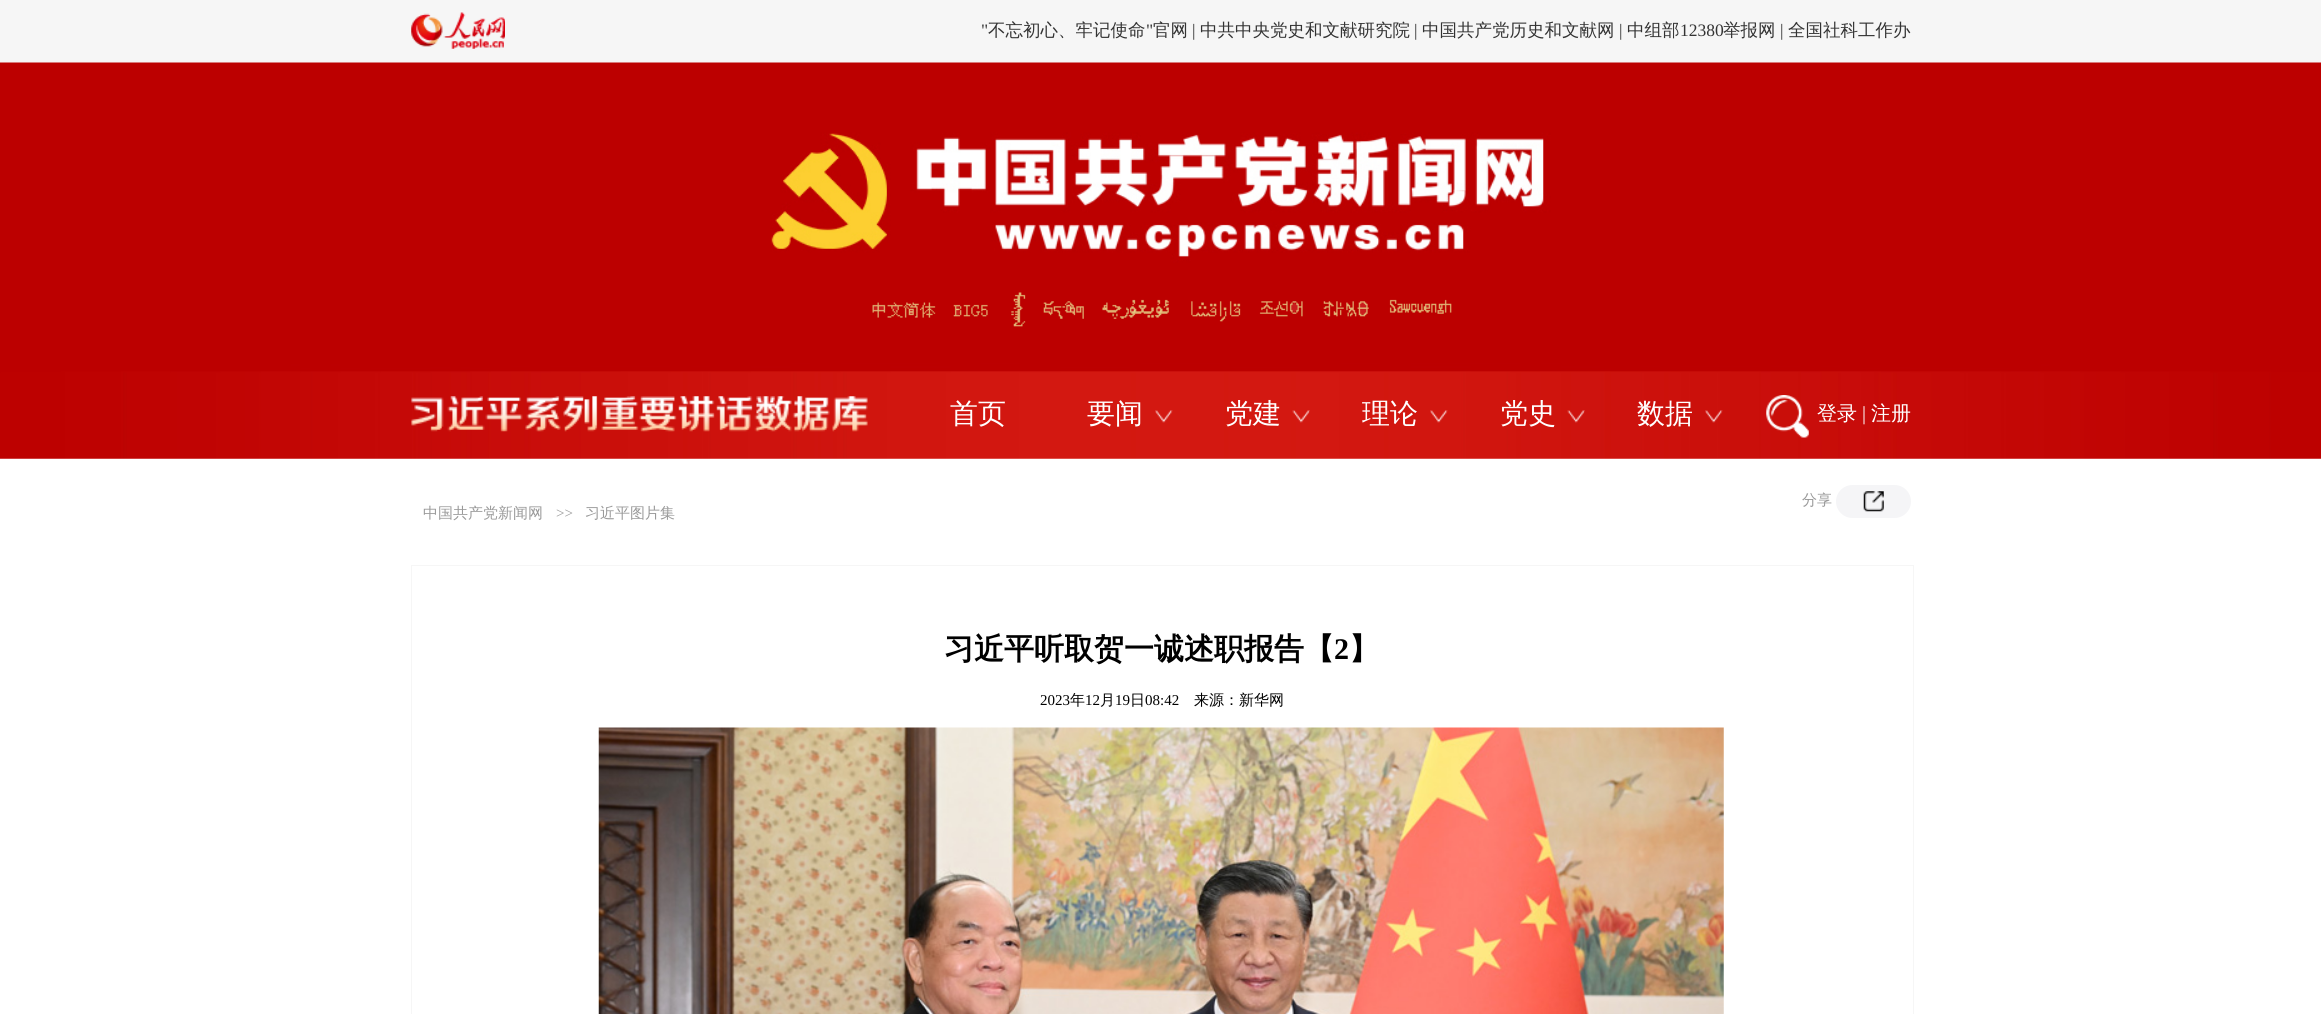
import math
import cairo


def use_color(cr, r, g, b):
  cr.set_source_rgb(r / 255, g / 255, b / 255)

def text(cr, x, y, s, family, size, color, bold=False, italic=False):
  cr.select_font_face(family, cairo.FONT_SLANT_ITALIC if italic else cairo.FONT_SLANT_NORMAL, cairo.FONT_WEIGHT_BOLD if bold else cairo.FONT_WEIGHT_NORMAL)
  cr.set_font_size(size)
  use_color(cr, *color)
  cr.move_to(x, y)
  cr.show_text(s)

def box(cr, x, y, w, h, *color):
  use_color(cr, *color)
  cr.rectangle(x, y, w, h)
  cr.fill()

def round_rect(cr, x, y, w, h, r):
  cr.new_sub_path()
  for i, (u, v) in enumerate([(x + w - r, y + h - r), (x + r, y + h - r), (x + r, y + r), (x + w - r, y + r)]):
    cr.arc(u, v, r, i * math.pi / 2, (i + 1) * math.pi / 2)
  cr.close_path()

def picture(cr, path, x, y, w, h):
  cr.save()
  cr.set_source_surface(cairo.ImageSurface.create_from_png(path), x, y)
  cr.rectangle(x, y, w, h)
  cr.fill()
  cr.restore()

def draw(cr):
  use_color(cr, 255, 255, 255)
  cr.paint()
  box(cr, 0, 0, 2321, 63, 246, 246, 246)
  picture(cr, "img_01.png", 411, 12, 94, 37)
  picture(cr, "img_02.png", 0, 62, 2321, 397)
  picture(cr, "img_03.png", 872, 292, 580, 35)
  picture(cr, "img_04.png", 411, 396, 457, 36)
  picture(cr, "img_05.png", 1155, 410, 18, 13)
  picture(cr, "img_06.png", 1292, 410, 18, 13)
  picture(cr, "img_07.png", 1430, 410, 18, 13)
  picture(cr, "img_08.png", 1567, 410, 18, 13)
  picture(cr, "img_09.png", 1705, 410, 18, 13)
  picture(cr, "img_10.png", 1766, 395, 43, 43)
  use_color(cr, 245, 245, 247)
  round_rect(cr, 1836, 485, 75, 33, 16.5)
  cr.fill()
  picture(cr, "img_11.png", 1863, 491, 21, 21)
  cr.rectangle(411.5, 565.5, 1502, 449)
  use_color(cr, 246, 246, 246)
  cr.set_line_width(1)
  cr.stroke()
  picture(cr, "img_12.png", 598, 727, 1126, 287)
  text(cr, 981, 36, "\"", "Liberation Serif", 17.5, (51, 51, 51))
  text(cr, 988, 36, "不忘初心、牢记使命", "WenQuanYi Zen Hei Medium", 17.5, (51, 51, 51))
  text(cr, 1146, 36, "\"", "Liberation Serif", 17.5, (51, 51, 51))
  text(cr, 1153, 36, "官网", "WenQuanYi Zen Hei Medium", 17.5, (51, 51, 51))
  text(cr, 1192, 36, "|", "Liberation Serif", 17.5, (51, 51, 51))
  text(cr, 1200, 36, "中共中央党史和文献研究院", "WenQuanYi Zen Hei Medium", 17.5, (51, 51, 51))
  text(cr, 1414, 36, "|", "Liberation Serif", 17.5, (51, 51, 51))
  text(cr, 1422, 36, "中国共产党历史和文献网", "WenQuanYi Zen Hei Medium", 17.5, (51, 51, 51))
  text(cr, 1619, 36, "|", "Liberation Serif", 17.5, (51, 51, 51))
  text(cr, 1627, 36, "中组部", "WenQuanYi Zen Hei Medium", 17.5, (51, 51, 51))
  text(cr, 1680, 36, "12380", "Liberation Serif", 17.5, (51, 51, 51))
  text(cr, 1723, 36, "举报网", "WenQuanYi Zen Hei Medium", 17.5, (51, 51, 51))
  text(cr, 1780, 36, "|", "Liberation Serif", 17.5, (51, 51, 51))
  text(cr, 1788, 36, "全国社科工作办", "WenQuanYi Zen Hei Medium", 17.5, (51, 51, 51))
  text(cr, 950, 423, "首页", "WenQuanYi Zen Hei Medium", 28, (255, 255, 255))
  text(cr, 1087, 423, "要闻", "WenQuanYi Zen Hei Medium", 28, (255, 255, 255))
  text(cr, 1225, 423, "党建", "WenQuanYi Zen Hei Medium", 28, (255, 255, 255))
  text(cr, 1362, 423, "理论", "WenQuanYi Zen Hei Medium", 28, (255, 255, 255))
  text(cr, 1500, 423, "党史", "WenQuanYi Zen Hei Medium", 28, (255, 255, 255))
  text(cr, 1637, 423, "数据", "WenQuanYi Zen Hei Medium", 28, (255, 255, 255))
  text(cr, 1817, 420, "登录", "WenQuanYi Zen Hei Medium", 20, (255, 255, 255))
  text(cr, 1862, 420, "|", "Liberation Serif", 20, (255, 255, 255))
  text(cr, 1871, 420, "注册", "WenQuanYi Zen Hei Medium", 20, (255, 255, 255))
  text(cr, 1802, 505, "分享", "WenQuanYi Zen Hei Medium", 15, (153, 153, 153))
  text(cr, 423, 518, "中国共产党新闻网", "WenQuanYi Zen Hei Medium", 15, (153, 153, 153))
  text(cr, 556, 518, ">>", "Liberation Serif", 15, (153, 153, 153))
  text(cr, 585, 518, "习近平图片集", "WenQuanYi Zen Hei Medium", 15, (153, 153, 153))
  text(cr, 944, 659, "习近平听取贺一诚述职报告【", "WenQuanYi Zen Hei", 30, (0, 0, 0), bold=True)
  text(cr, 1334, 659, "2", "Liberation Serif", 30, (0, 0, 0), bold=True)
  text(cr, 1349, 659, "】", "WenQuanYi Zen Hei", 30, (0, 0, 0), bold=True)
  text(cr, 1040, 705, "2023", "Liberation Serif", 15, (0, 0, 0))
  text(cr, 1070, 705, "年", "WenQuanYi Zen Hei Medium", 15, (0, 0, 0))
  text(cr, 1085, 705, "12", "Liberation Serif", 15, (0, 0, 0))
  text(cr, 1100, 705, "月", "WenQuanYi Zen Hei Medium", 15, (0, 0, 0))
  text(cr, 1115, 705, "19", "Liberation Serif", 15, (0, 0, 0))
  text(cr, 1130, 705, "日", "WenQuanYi Zen Hei Medium", 15, (0, 0, 0))
  text(cr, 1145, 705, "08:42", "Liberation Serif", 15, (0, 0, 0))
  text(cr, 1194, 705, "来源：新华网", "WenQuanYi Zen Hei Medium", 15, (0, 0, 0))


surface = cairo.ImageSurface(cairo.FORMAT_RGB24, 2321, 1014)
cr = cairo.Context(surface)
options = cairo.FontOptions()
options.set_hint_metrics(cairo.HINT_METRICS_OFF)
options.set_hint_style(cairo.HINT_STYLE_NONE)
cr.set_font_options(options)
cr.set_miter_limit(4)
draw(cr)
surface.write_to_png("out.png")
